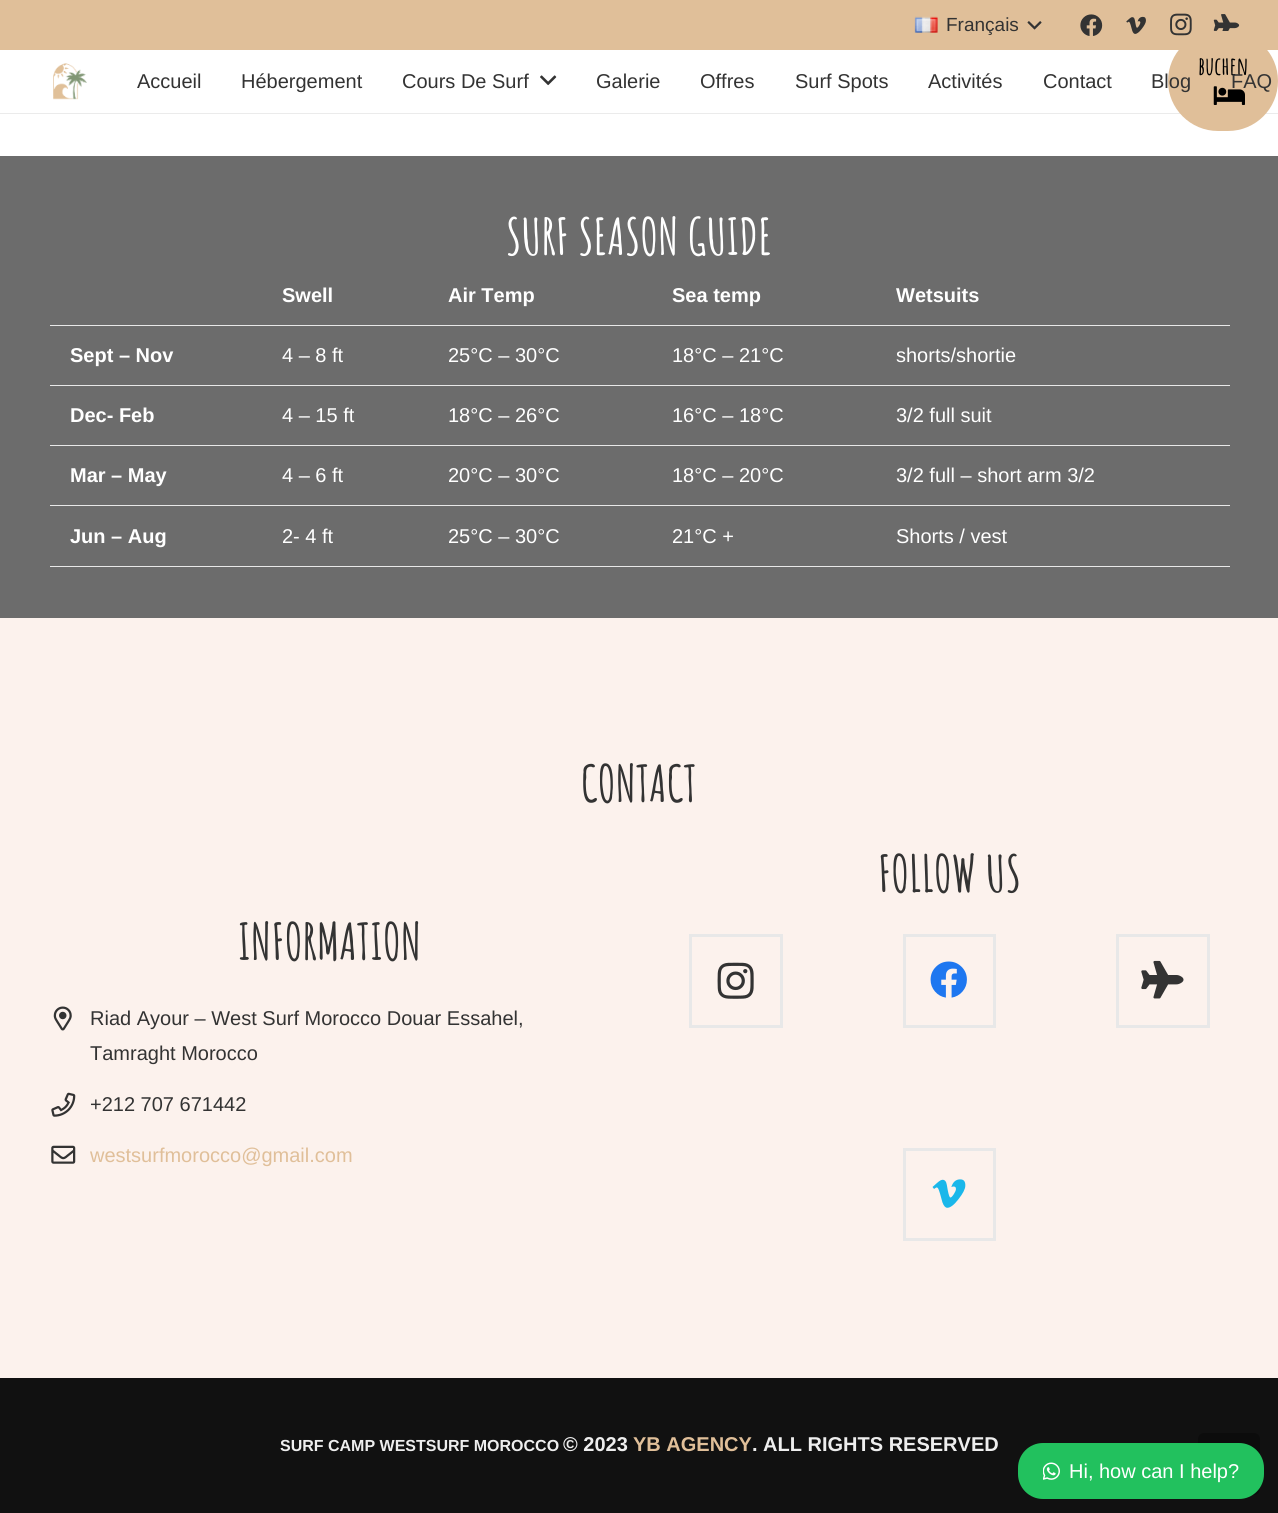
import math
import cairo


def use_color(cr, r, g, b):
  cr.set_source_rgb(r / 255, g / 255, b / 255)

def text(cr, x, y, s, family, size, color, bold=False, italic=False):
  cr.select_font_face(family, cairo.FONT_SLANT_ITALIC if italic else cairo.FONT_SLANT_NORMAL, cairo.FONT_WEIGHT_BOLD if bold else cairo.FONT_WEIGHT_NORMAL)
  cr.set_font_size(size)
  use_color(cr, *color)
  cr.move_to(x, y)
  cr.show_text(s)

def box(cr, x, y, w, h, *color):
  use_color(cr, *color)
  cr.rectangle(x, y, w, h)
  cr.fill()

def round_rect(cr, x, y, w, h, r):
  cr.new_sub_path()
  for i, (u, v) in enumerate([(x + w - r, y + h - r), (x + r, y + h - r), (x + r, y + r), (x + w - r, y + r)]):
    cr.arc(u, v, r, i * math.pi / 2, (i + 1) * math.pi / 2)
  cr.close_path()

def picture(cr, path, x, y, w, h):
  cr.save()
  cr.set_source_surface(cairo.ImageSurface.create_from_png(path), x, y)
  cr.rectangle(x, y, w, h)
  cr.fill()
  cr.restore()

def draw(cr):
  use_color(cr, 255, 255, 255)
  cr.paint()
  box(cr, 0, 0, 1278, 50, 224, 191, 153)
  picture(cr, "img_01.png", 914, 16, 24, 17)
  picture(cr, "img_02.png", 1027, 21, 15, 9)
  picture(cr, "img_03.png", 1080, 14, 23, 22)
  picture(cr, "img_04.png", 1126, 16, 20, 18)
  picture(cr, "img_05.png", 1170, 13, 22, 23)
  picture(cr, "img_06.png", 1213, 14, 27, 18)
  use_color(cr, 235, 235, 235)
  cr.new_path()
  cr.move_to(0, 112)
  cr.line_to(0, 114)
  cr.line_to(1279, 114)
  cr.line_to(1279, 51)
  cr.line_to(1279, 112)
  cr.close_path()
  cr.fill()
  box(cr, 0, 112, 1278, 1, 255, 255, 255)
  use_color(cr, 224, 191, 153)
  round_rect(cr, 1168, 31, 110, 100, 50)
  cr.fill()
  picture(cr, "img_07.png", 1213, 86, 32, 19)
  picture(cr, "img_08.png", 53, 63, 34, 37)
  picture(cr, "img_09.png", 540, 75, 17, 11)
  box(cr, 0, 156, 1278, 462, 108, 108, 108)
  box(cr, 50, 325, 1180, 1, 232, 232, 232)
  box(cr, 50, 385, 1180, 1, 232, 232, 232)
  box(cr, 50, 445, 1180, 1, 232, 232, 232)
  box(cr, 50, 505, 1180, 1, 232, 232, 232)
  box(cr, 50, 566, 1180, 1, 232, 232, 232)
  box(cr, 0, 618, 1278, 760, 252, 242, 237)
  cr.rectangle(690.5, 935.5, 91, 91)
  use_color(cr, 232, 232, 232)
  cr.set_line_width(3)
  cr.stroke()
  picture(cr, "img_10.png", 717, 962, 37, 37)
  cr.rectangle(904.5, 935.5, 90, 91)
  cr.stroke()
  picture(cr, "img_11.png", 930, 961, 37, 37)
  cr.rectangle(1117.5, 935.5, 91, 91)
  cr.stroke()
  picture(cr, "img_12.png", 1141, 960, 43, 39)
  cr.rectangle(904.5, 1149.5, 90, 90)
  cr.stroke()
  picture(cr, "img_13.png", 932, 1179, 34, 29)
  picture(cr, "img_14.png", 53, 1006, 19, 25)
  picture(cr, "img_15.png", 51, 1092, 25, 25)
  picture(cr, "img_16.png", 51, 1145, 25, 19)
  box(cr, 0, 1378, 1278, 135, 17, 17, 17)
  use_color(cr, 12, 12, 12)
  round_rect(cr, 1198, 1433, 62, 62, 6)
  cr.fill()
  use_color(cr, 34, 193, 94)
  round_rect(cr, 1018, 1443, 246, 56, 25)
  cr.fill()
  picture(cr, "img_17.png", 1043, 1462, 17, 18)
  text(cr, 946, 31, "Français", "Liberation Sans", 19, (51, 51, 51))
  text(cr, 1198, 75, "buchen", "Amatic SC", 25, (0, 0, 0), bold=True)
  text(cr, 137, 88, "Accueil", "Liberation Sans", 20, (51, 51, 51))
  text(cr, 241, 88, "Hébergement", "Liberation Sans", 20, (51, 51, 51))
  text(cr, 402, 88, "Cours De Surf", "Liberation Sans", 20, (51, 51, 51))
  text(cr, 596, 88, "Galerie", "Liberation Sans", 20, (51, 51, 51))
  text(cr, 700, 88, "Offres", "Liberation Sans", 20, (51, 51, 51))
  text(cr, 795, 88, "Surf Spots", "Liberation Sans", 20, (51, 51, 51))
  text(cr, 928, 88, "Activités", "Liberation Sans", 20, (51, 51, 51))
  text(cr, 1043, 88, "Contact", "Liberation Sans", 20, (51, 51, 51))
  text(cr, 1151, 88, "Blog", "Liberation Sans", 20, (51, 51, 51))
  text(cr, 1231, 88, "FAQ", "Liberation Sans", 20, (51, 51, 51))
  text(cr, 506, 255, "SURF SEASON GUIDE", "Amatic SC", 50, (255, 255, 255), bold=True)
  text(cr, 282, 302, "Swell", "Liberation Sans", 20, (255, 255, 255), bold=True)
  text(cr, 448, 302, "Air Temp", "Liberation Sans", 20, (255, 255, 255), bold=True)
  text(cr, 672, 302, "Sea temp", "Liberation Sans", 20, (255, 255, 255), bold=True)
  text(cr, 896, 302, "Wetsuits", "Liberation Sans", 20, (255, 255, 255), bold=True)
  text(cr, 70, 362, "Sept – Nov", "Liberation Sans", 20, (255, 255, 255), bold=True)
  text(cr, 282, 362, "4 – 8 ft", "Liberation Sans", 20, (255, 255, 255))
  text(cr, 448, 362, "25°C – 30°C", "Liberation Sans", 20, (255, 255, 255))
  text(cr, 672, 362, "18°C – 21°C", "Liberation Sans", 20, (255, 255, 255))
  text(cr, 896, 362, "shorts/shortie", "Liberation Sans", 20, (255, 255, 255))
  text(cr, 70, 422, "Dec- Feb", "Liberation Sans", 20, (255, 255, 255), bold=True)
  text(cr, 282, 422, "4 – 15 ft", "Liberation Sans", 20, (255, 255, 255))
  text(cr, 448, 422, "18°C – 26°C", "Liberation Sans", 20, (255, 255, 255))
  text(cr, 672, 422, "16°C – 18°C", "Liberation Sans", 20, (255, 255, 255))
  text(cr, 896, 422, "3/2 full suit", "Liberation Sans", 20, (255, 255, 255))
  text(cr, 70, 482, "Mar – May", "Liberation Sans", 20, (255, 255, 255), bold=True)
  text(cr, 282, 482, "4 – 6 ft", "Liberation Sans", 20, (255, 255, 255))
  text(cr, 448, 482, "20°C – 30°C", "Liberation Sans", 20, (255, 255, 255))
  text(cr, 672, 482, "18°C – 20°C", "Liberation Sans", 20, (255, 255, 255))
  text(cr, 896, 482, "3/2 full – short arm 3/2", "Liberation Sans", 20, (255, 255, 255))
  text(cr, 70, 543, "Jun – Aug", "Liberation Sans", 20, (255, 255, 255), bold=True)
  text(cr, 282, 543, "2- 4 ft", "Liberation Sans", 20, (255, 255, 255))
  text(cr, 448, 543, "25°C – 30°C", "Liberation Sans", 20, (255, 255, 255))
  text(cr, 672, 543, "21°C +", "Liberation Sans", 20, (255, 255, 255))
  text(cr, 896, 543, "Shorts / vest", "Liberation Sans", 20, (255, 255, 255))
  text(cr, 581, 802, "CONTACT", "Amatic SC", 50, (51, 51, 51), bold=True)
  text(cr, 878, 892, "FOLLOW US", "Amatic SC", 50, (51, 51, 51), bold=True)
  text(cr, 238, 960, "INFORMATION", "Amatic SC", 50, (51, 51, 51), bold=True)
  text(cr, 90, 1025, "Riad Ayour – West Surf Morocco Douar Essahel,", "Liberation Sans", 20, (51, 51, 51))
  text(cr, 90, 1060, "Tamraght Morocco", "Liberation Sans", 20, (51, 51, 51))
  text(cr, 90, 1111, "+212 707 671442", "Liberation Sans", 20, (51, 51, 51))
  text(cr, 90, 1162, "westsurfmorocco@gmail.com", "Liberation Sans", 20, (224, 191, 153))
  text(cr, 280, 1451, "SURF CAMP WESTSURF MOROCCO", "Liberation Sans", 16, (238, 238, 238), bold=True)
  text(cr, 563, 1451, "© 2023", "Liberation Sans", 20, (238, 238, 238), bold=True)
  text(cr, 633, 1451, "YB AGENCY", "Liberation Sans", 20, (224, 191, 153), bold=True)
  text(cr, 752, 1451, ". ALL RIGHTS RESERVED", "Liberation Sans", 20, (238, 238, 238), bold=True)
  text(cr, 1069, 1478, "Hi, how can I help?", "Liberation Sans", 20, (255, 255, 255))


surface = cairo.ImageSurface(cairo.FORMAT_RGB24, 1278, 1513)
cr = cairo.Context(surface)
options = cairo.FontOptions()
options.set_hint_metrics(cairo.HINT_METRICS_OFF)
options.set_hint_style(cairo.HINT_STYLE_NONE)
cr.set_font_options(options)
cr.set_miter_limit(4)
draw(cr)
surface.write_to_png("out.png")
